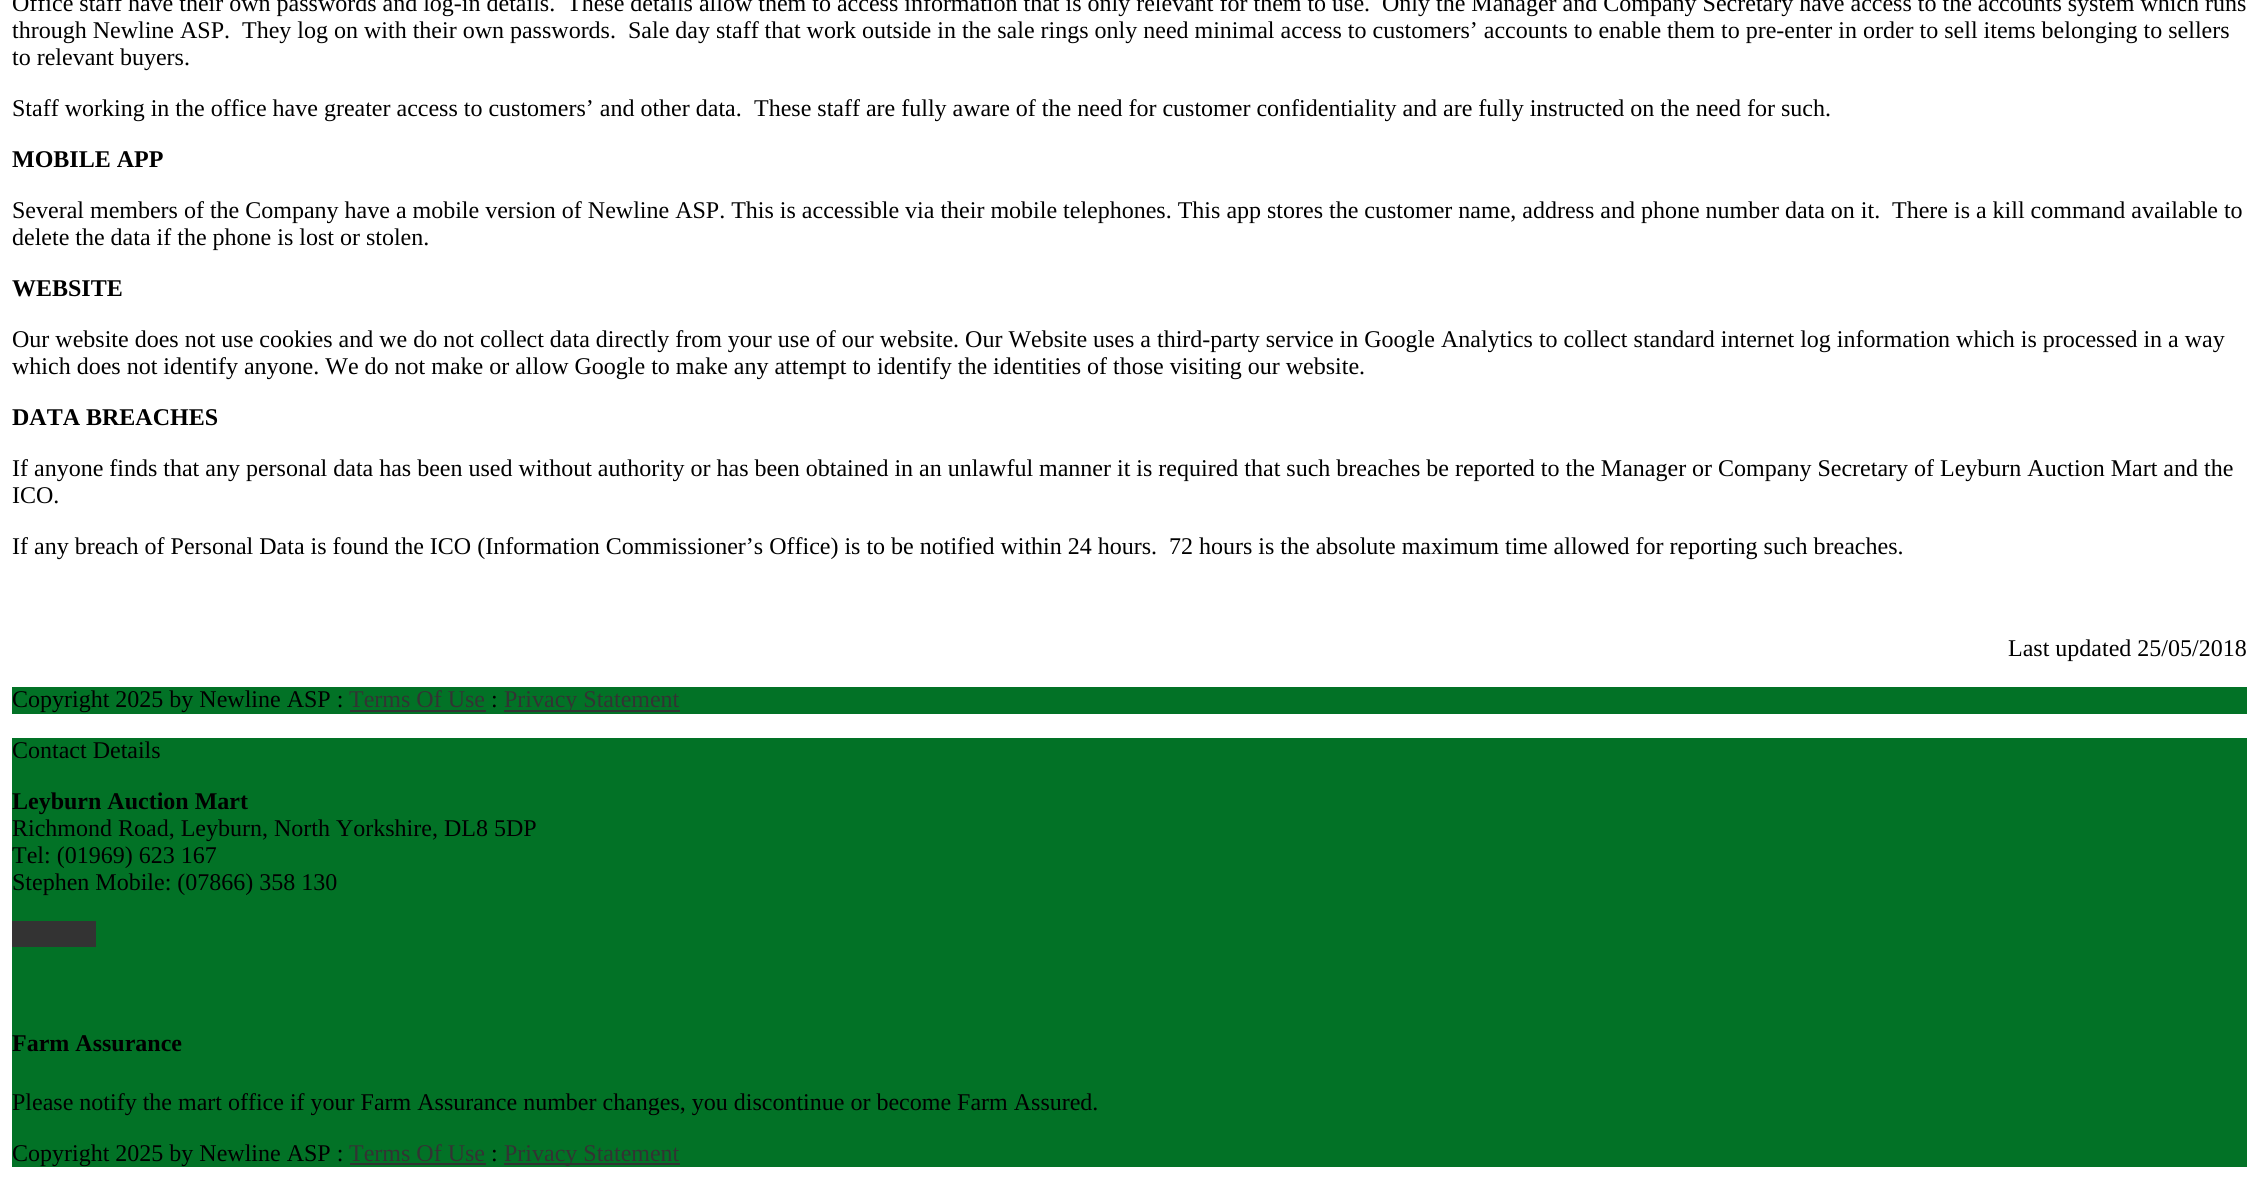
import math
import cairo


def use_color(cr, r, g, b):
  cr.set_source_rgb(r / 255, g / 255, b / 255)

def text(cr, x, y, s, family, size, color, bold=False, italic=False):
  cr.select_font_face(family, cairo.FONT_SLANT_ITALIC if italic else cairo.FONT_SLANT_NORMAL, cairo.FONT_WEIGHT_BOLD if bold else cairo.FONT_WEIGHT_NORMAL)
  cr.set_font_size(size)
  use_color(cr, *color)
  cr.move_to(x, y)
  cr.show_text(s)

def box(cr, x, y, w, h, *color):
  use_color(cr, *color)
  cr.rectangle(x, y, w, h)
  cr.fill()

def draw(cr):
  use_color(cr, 255, 255, 255)
  cr.paint()
  box(cr, 12, 687, 2235, 27, 2, 114, 38)
  box(cr, 350, 710, 136, 2, 51, 51, 51)
  box(cr, 504, 710, 176, 2, 51, 51, 51)
  box(cr, 12, 738, 2235, 429, 2, 114, 38)
  box(cr, 12, 921, 84, 26, 51, 51, 51)
  box(cr, 350, 1163, 136, 2, 51, 51, 51)
  box(cr, 504, 1163, 176, 2, 51, 51, 51)
  text(cr, 12, 11, "Office staff have their own passwords and log-in details.", "Liberation Serif", 24, (0, 0, 0))
  text(cr, 567, 11, "These details allow them to access information that is only relevant for them to use.", "Liberation Serif", 24, (0, 0, 0))
  text(cr, 1382, 11, "Only the Manager and Company Secretary have access to the accounts system which runs", "Liberation Serif", 24, (0, 0, 0))
  text(cr, 12, 38, "through Newline ASP.", "Liberation Serif", 24, (0, 0, 0))
  text(cr, 242, 38, "They log on with their own passwords.", "Liberation Serif", 24, (0, 0, 0))
  text(cr, 628, 38, "Sale day staff that work outside in the sale rings only need minimal access to customers’ accounts to enable them to pre-enter in order to sell items belonging to sellers", "Liberation Serif", 24, (0, 0, 0))
  text(cr, 12, 65, "to relevant buyers.", "Liberation Serif", 24, (0, 0, 0))
  text(cr, 12, 116, "Staff working in the office have greater access to customers’ and other data.", "Liberation Serif", 24, (0, 0, 0))
  text(cr, 754, 116, "These staff are fully aware of the need for customer confidentiality and are fully instructed on the need for such.", "Liberation Serif", 24, (0, 0, 0))
  text(cr, 12, 167, "MOBILE APP", "Liberation Serif", 24, (0, 0, 0), bold=True)
  text(cr, 12, 218, "Several members of the Company have a mobile version of Newline ASP. This is accessible via their mobile telephones. This app stores the customer name, address and phone number data on it.", "Liberation Serif", 24, (0, 0, 0))
  text(cr, 1892, 218, "There is a kill command available to", "Liberation Serif", 24, (0, 0, 0))
  text(cr, 12, 245, "delete the data if the phone is lost or stolen.", "Liberation Serif", 24, (0, 0, 0))
  text(cr, 12, 296, "WEBSITE", "Liberation Serif", 24, (0, 0, 0), bold=True)
  text(cr, 12, 347, "Our website does not use cookies and we do not collect data directly from your use of our website. Our Website uses a third-party service in Google Analytics to collect standard internet log information which is processed in a way", "Liberation Serif", 24, (0, 0, 0))
  text(cr, 12, 374, "which does not identify anyone. We do not make or allow Google to make any attempt to identify the identities of those visiting our website.", "Liberation Serif", 24, (0, 0, 0))
  text(cr, 12, 425, "DATA BREACHES", "Liberation Serif", 24, (0, 0, 0), bold=True)
  text(cr, 12, 476, "If anyone finds that any personal data has been used without authority or has been obtained in an unlawful manner it is required that such breaches be reported to the Manager or Company Secretary of Leyburn Auction Mart and the", "Liberation Serif", 24, (0, 0, 0))
  text(cr, 12, 503, "ICO.", "Liberation Serif", 24, (0, 0, 0))
  text(cr, 12, 554, "If any breach of Personal Data is found the ICO (Information Commissioner’s Office) is to be notified within 24 hours.", "Liberation Serif", 24, (0, 0, 0))
  text(cr, 1169, 554, "72 hours is the absolute maximum time allowed for reporting such breaches.", "Liberation Serif", 24, (0, 0, 0))
  text(cr, 2008, 656, "Last updated 25/05/2018", "Liberation Serif", 24, (0, 0, 0))
  text(cr, 12, 707, "Copyright 2025 by Newline ASP :", "Liberation Serif", 24, (0, 0, 0))
  text(cr, 349, 707, "Terms Of Use", "Liberation Serif", 24, (51, 51, 51))
  text(cr, 491, 707, ":", "Liberation Serif", 24, (0, 0, 0))
  text(cr, 504, 707, "Privacy Statement", "Liberation Serif", 24, (51, 51, 51))
  text(cr, 12, 758, "Contact Details", "Liberation Serif", 24, (0, 0, 0))
  text(cr, 12, 809, "Leyburn Auction Mart", "Liberation Serif", 24, (0, 0, 0), bold=True)
  text(cr, 12, 836, "Richmond Road, Leyburn, North Yorkshire, DL8 5DP", "Liberation Serif", 24, (0, 0, 0))
  text(cr, 12, 863, "Tel: (01969) 623 167", "Liberation Serif", 24, (0, 0, 0))
  text(cr, 12, 890, "Stephen Mobile: (07866) 358 130", "Liberation Serif", 24, (0, 0, 0))
  text(cr, 12, 1051, "Farm Assurance", "Liberation Serif", 24, (0, 0, 0), bold=True)
  text(cr, 12, 1110, "Please notify the mart office if your Farm Assurance number changes, you discontinue or become Farm Assured.", "Liberation Serif", 24, (0, 0, 0))
  text(cr, 12, 1161, "Copyright 2025 by Newline ASP :", "Liberation Serif", 24, (0, 0, 0))
  text(cr, 349, 1161, "Terms Of Use", "Liberation Serif", 24, (51, 51, 51))
  text(cr, 491, 1161, ":", "Liberation Serif", 24, (0, 0, 0))
  text(cr, 504, 1161, "Privacy Statement", "Liberation Serif", 24, (51, 51, 51))


surface = cairo.ImageSurface(cairo.FORMAT_RGB24, 2259, 1179)
cr = cairo.Context(surface)
options = cairo.FontOptions()
options.set_hint_metrics(cairo.HINT_METRICS_OFF)
options.set_hint_style(cairo.HINT_STYLE_NONE)
cr.set_font_options(options)
cr.set_miter_limit(4)
draw(cr)
surface.write_to_png("out.png")
